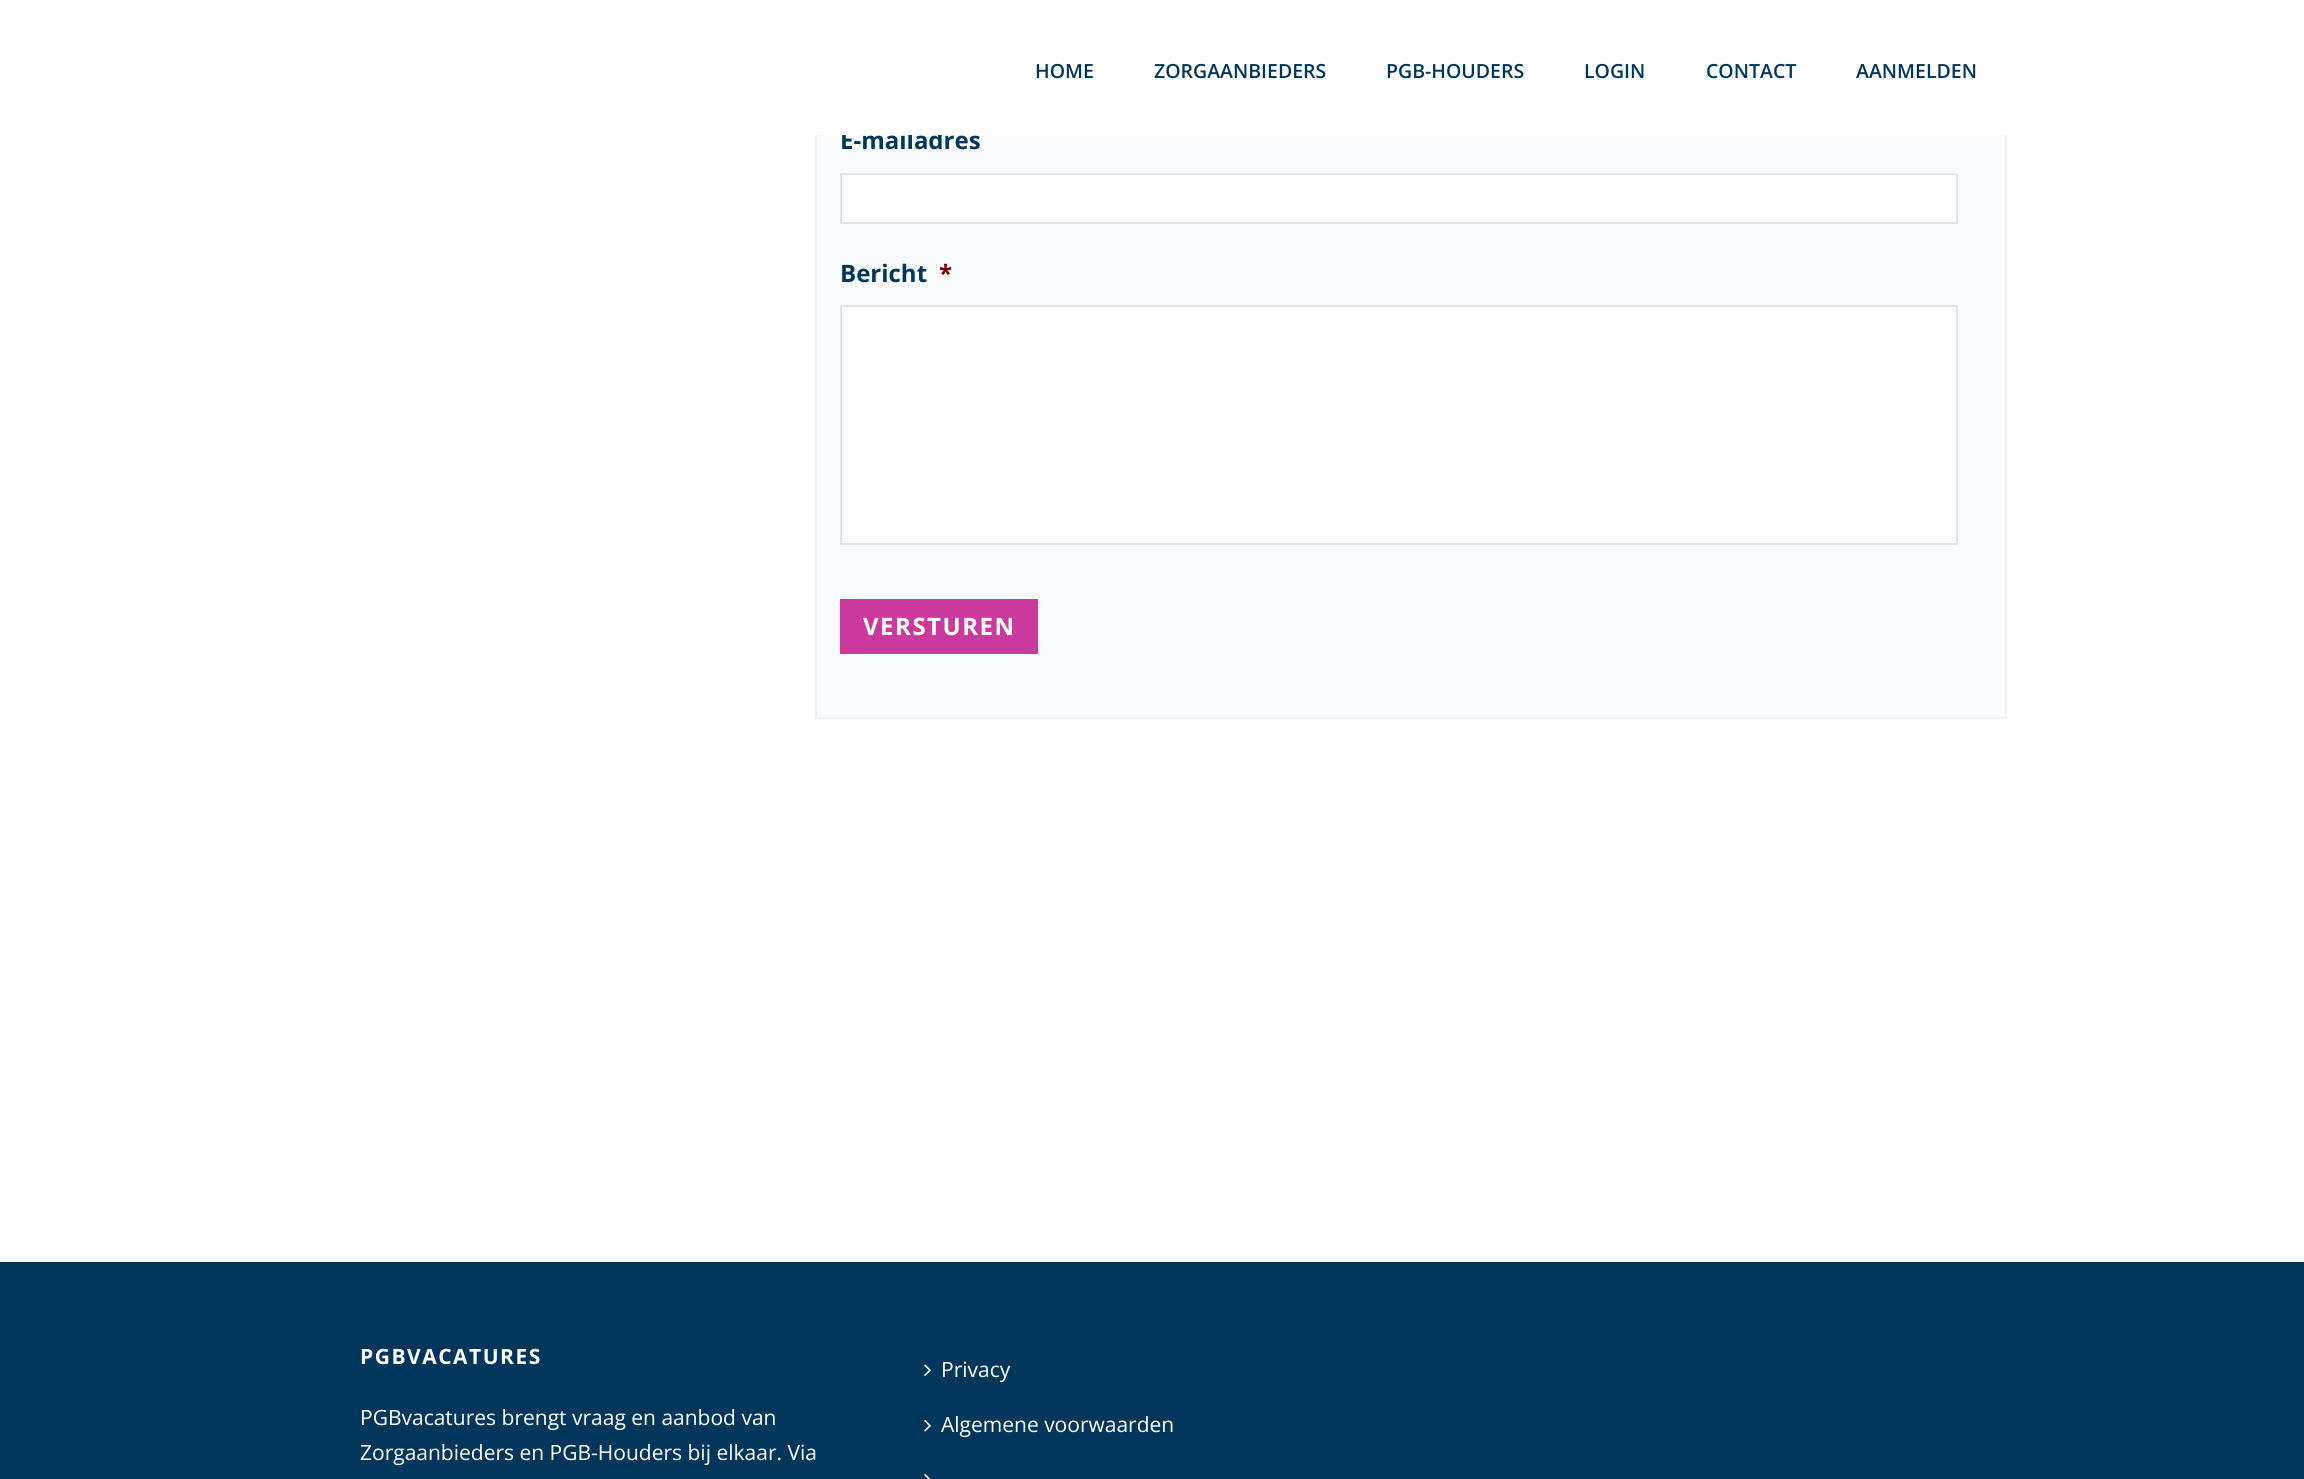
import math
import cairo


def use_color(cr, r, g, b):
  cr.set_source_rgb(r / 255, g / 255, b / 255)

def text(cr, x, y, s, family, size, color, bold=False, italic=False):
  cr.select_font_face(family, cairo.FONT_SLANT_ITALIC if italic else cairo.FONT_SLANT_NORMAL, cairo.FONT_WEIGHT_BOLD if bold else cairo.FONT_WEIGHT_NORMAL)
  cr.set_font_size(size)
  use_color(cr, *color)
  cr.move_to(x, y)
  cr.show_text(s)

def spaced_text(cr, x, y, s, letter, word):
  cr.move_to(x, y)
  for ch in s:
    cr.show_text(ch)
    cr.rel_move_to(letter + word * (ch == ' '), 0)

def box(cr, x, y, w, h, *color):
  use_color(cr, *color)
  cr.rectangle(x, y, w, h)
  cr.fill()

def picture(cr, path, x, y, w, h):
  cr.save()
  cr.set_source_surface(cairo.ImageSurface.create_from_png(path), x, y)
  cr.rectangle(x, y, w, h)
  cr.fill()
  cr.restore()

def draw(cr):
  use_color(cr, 255, 255, 255)
  cr.paint()
  box(cr, 817, 135, 1188, 582, 249, 251, 252)
  cr.rectangle(816, -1, 1190, 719)
  use_color(cr, 239, 241, 242)
  cr.stroke()
  use_color(cr, 253, 253, 253)
  cr.rectangle(841, 174, 1116, 49)
  cr.fill_preserve()
  use_color(cr, 227, 227, 227)
  cr.stroke()
  use_color(cr, 253, 253, 253)
  cr.rectangle(841, 306, 1116, 238)
  cr.fill_preserve()
  use_color(cr, 227, 227, 227)
  cr.stroke()
  box(cr, 840, 599, 198, 55, 202, 57, 156)
  box(cr, 0, 1262, 2304, 217, 0, 54, 92)
  picture(cr, "img_01.png", 924, 1364, 7, 12)
  picture(cr, "img_02.png", 924, 1420, 7, 12)
  picture(cr, "img_03.png", 924, 1474, 7, 5)
  text(cr, 840, 149, "E-mailadres", "Open Sans", 24, (0, 54, 92), bold=True)
  box(cr, 815, 0, 1192, 135, 255, 255, 255)
  text(cr, 1856, 78, "AANMELDEN", "Open Sans SemiBold", 19.5, (0, 54, 92))
  text(cr, 1706, 78, "CONTACT", "Open Sans SemiBold", 19.5, (0, 54, 92))
  text(cr, 1584, 78, "LOGIN", "Open Sans SemiBold", 19.5, (0, 54, 92))
  text(cr, 1386, 78, "PGB-HOUDERS", "Open Sans SemiBold", 19.5, (0, 54, 92))
  text(cr, 1154, 78, "ZORGAANBIEDERS", "Open Sans SemiBold", 19.5, (0, 54, 92))
  text(cr, 1035, 78, "HOME", "Open Sans SemiBold", 19.5, (0, 54, 92))
  text(cr, 840, 282, "Bericht", "Open Sans", 24, (0, 54, 92), bold=True)
  text(cr, 939, 282, "*", "Open Sans", 24, (121, 0, 0), bold=True)
  use_color(cr, 255, 255, 255)
  spaced_text(cr, 863, 635, "VERSTUREN", 1.5, 0)
  cr.set_font_size(21)
  spaced_text(cr, 360, 1364, "PGBVACATURES", 1.5, 0)
  text(cr, 360, 1425, "PGBvacatures brengt vraag en aanbod van", "Open Sans", 21, (255, 255, 255))
  text(cr, 360, 1460, "Zorgaanbieders en PGB-Houders bij elkaar. Via", "Open Sans", 21, (255, 255, 255))
  text(cr, 941, 1377, "Privacy", "Open Sans", 21, (255, 255, 255))
  text(cr, 941, 1432, "Algemene voorwaarden", "Open Sans", 21, (255, 255, 255))


surface = cairo.ImageSurface(cairo.FORMAT_RGB24, 2304, 1479)
cr = cairo.Context(surface)
options = cairo.FontOptions()
options.set_hint_metrics(cairo.HINT_METRICS_OFF)
options.set_hint_style(cairo.HINT_STYLE_NONE)
cr.set_font_options(options)
cr.set_miter_limit(4)
draw(cr)
surface.write_to_png("out.png")
